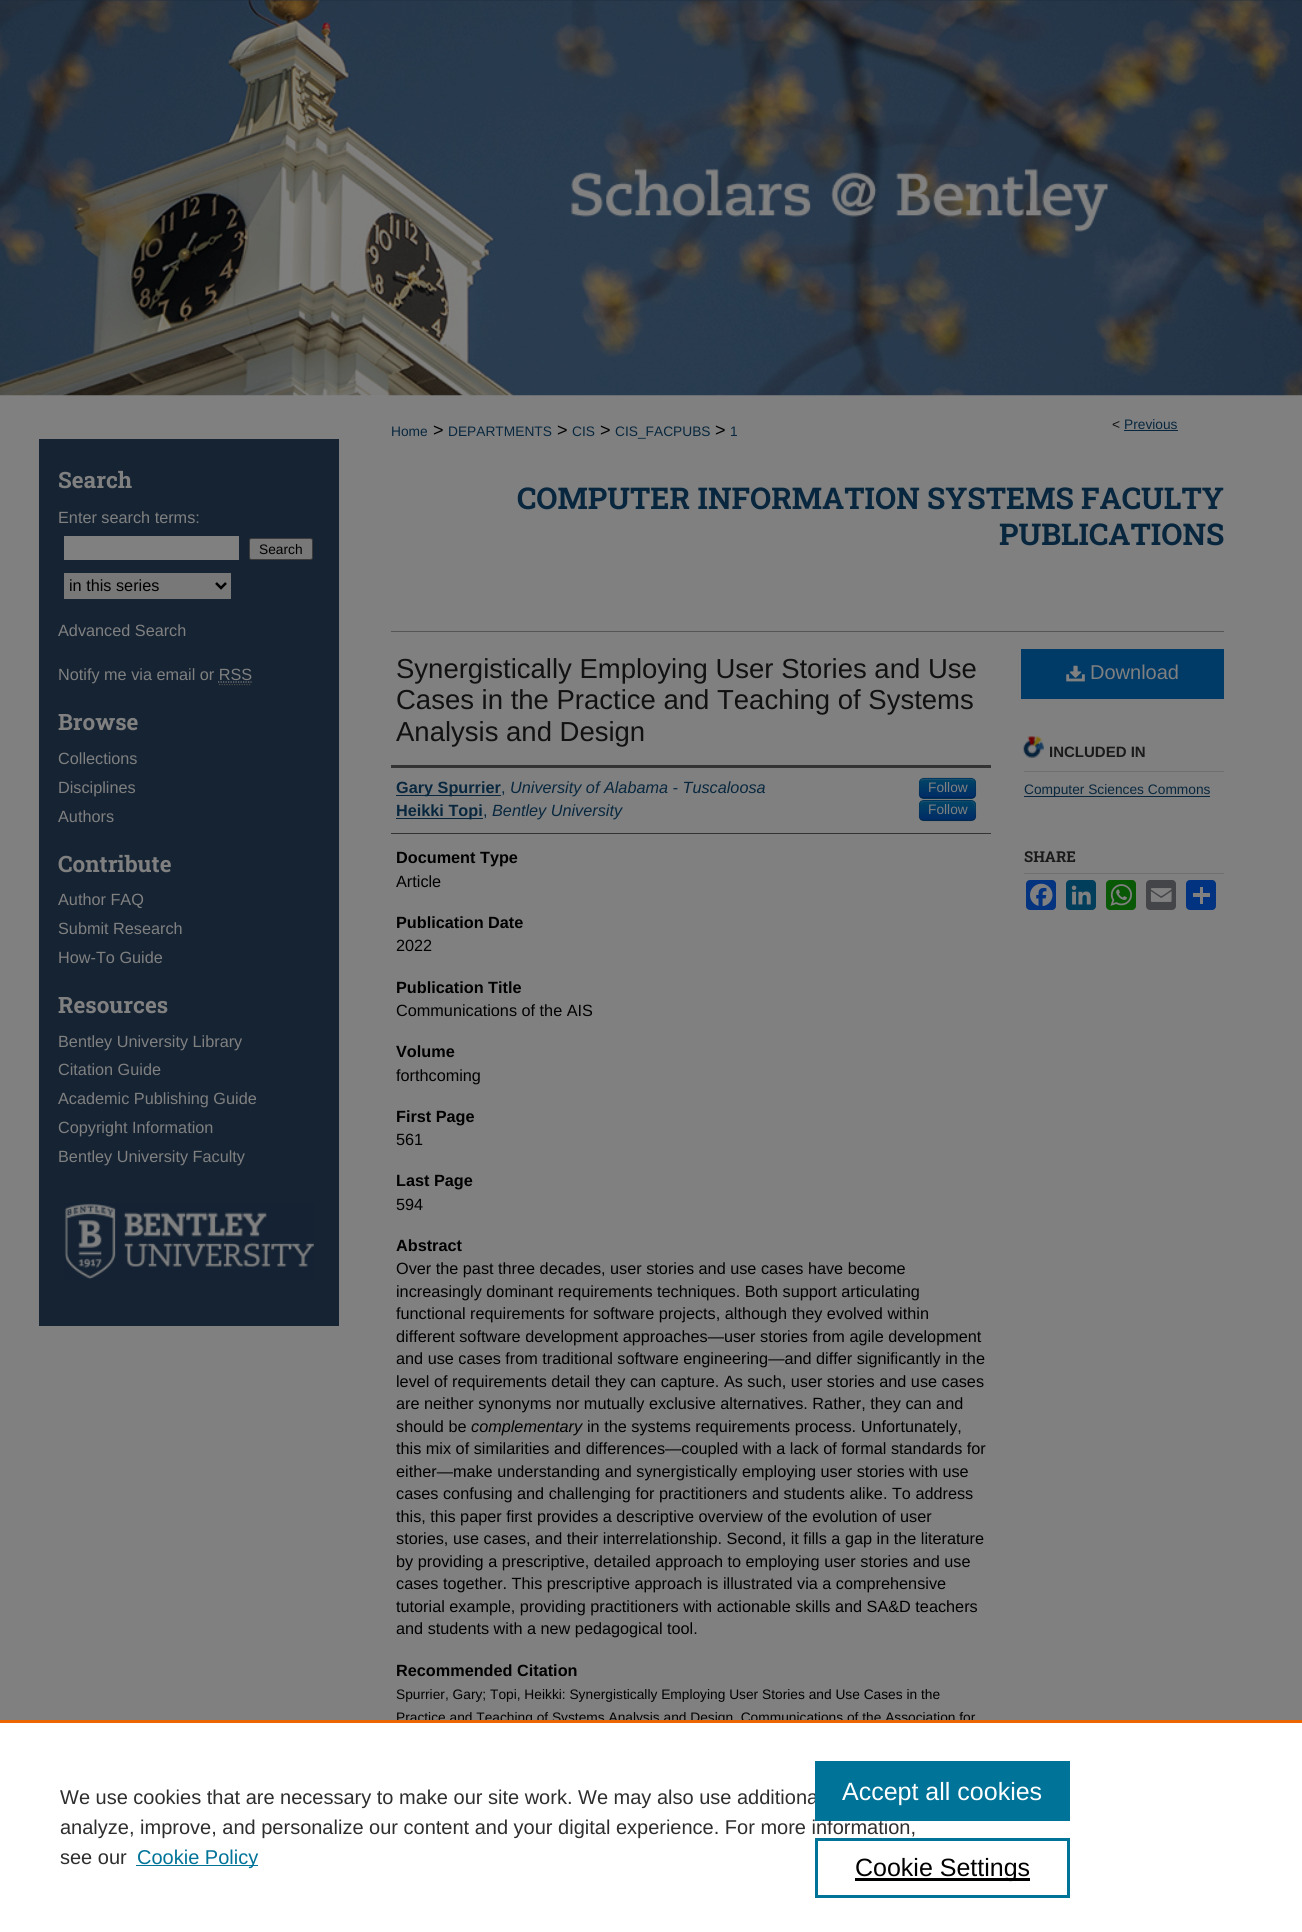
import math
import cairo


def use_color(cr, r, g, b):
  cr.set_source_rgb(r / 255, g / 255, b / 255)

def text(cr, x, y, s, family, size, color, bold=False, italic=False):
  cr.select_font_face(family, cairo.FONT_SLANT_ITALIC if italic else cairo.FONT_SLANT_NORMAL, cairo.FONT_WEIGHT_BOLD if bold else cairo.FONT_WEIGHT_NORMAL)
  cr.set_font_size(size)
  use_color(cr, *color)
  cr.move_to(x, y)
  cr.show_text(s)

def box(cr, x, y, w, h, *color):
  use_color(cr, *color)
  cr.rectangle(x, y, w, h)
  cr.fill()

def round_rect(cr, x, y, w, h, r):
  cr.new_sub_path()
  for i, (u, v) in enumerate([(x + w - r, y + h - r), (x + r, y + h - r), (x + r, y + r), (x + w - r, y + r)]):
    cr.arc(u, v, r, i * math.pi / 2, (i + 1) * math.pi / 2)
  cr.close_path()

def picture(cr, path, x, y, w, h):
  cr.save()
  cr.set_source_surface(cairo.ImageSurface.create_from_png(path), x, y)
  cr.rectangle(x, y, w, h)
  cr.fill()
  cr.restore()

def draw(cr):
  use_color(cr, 128, 128, 128)
  cr.paint()
  picture(cr, "img_01.png", 0, 0, 1302, 396)
  box(cr, 38, 395, 1226, 1, 128, 128, 128)
  picture(cr, "img_02.png", 38, 0, 1226, 396)
  box(cr, 39, 439, 300, 887, 21, 35, 51)
  box(cr, 64, 536, 175, 24, 128, 128, 128)
  use_color(cr, 120, 120, 120)
  round_rect(cr, 249.5, 538.5, 63, 21, 2)
  cr.fill_preserve()
  use_color(cr, 59, 59, 59)
  cr.set_line_width(1)
  cr.stroke()
  box(cr, 64, 573, 167, 26, 120, 120, 120)
  cr.new_path()
  cr.move_to(216, 583)
  cr.line_to(221, 588)
  cr.line_to(226, 583)
  use_color(cr, 0, 0, 0)
  cr.set_line_width(2.5)
  cr.stroke()
  cr.new_path()
  cr.move_to(218, 682)
  cr.line_to(251.5, 682)
  use_color(cr, 128, 128, 128)
  cr.set_line_width(1.2)
  cr.set_dash([1.25, 1.25])
  cr.stroke()
  picture(cr, "img_03.png", 64, 1203, 250, 77)
  box(cr, 1124, 430, 54, 1, 8, 39, 62)
  box(cr, 391, 631, 833, 1, 85, 85, 85)
  box(cr, 391, 765, 600, 3, 51, 51, 51)
  box(cr, 391, 833, 600, 1, 51, 51, 51)
  box(cr, 396, 795, 105, 1, 8, 39, 62)
  use_color(cr, 0, 58, 102)
  round_rect(cr, 919, 778, 57, 21, 5)
  cr.fill()
  cr.save()
  round_rect(cr, 919, 778, 57, 21, 5)
  cr.clip()
  gradient = cairo.LinearGradient(948, 779, 948, 798)
  gradient.add_color_stop_rgba(0, 0, 0.267, 0.4, 1)
  gradient.add_color_stop_rgba(1, 0, 0.169, 0.4, 1)
  cr.set_source(gradient)
  cr.rectangle(919, 779, 57, 19)
  cr.fill()
  cr.restore()
  cr.set_source_rgba(0.502, 0.502, 0.502, 0.2)
  cr.new_path()
  cr.move_to(924, 780)
  cr.line_to(968, 780)
  cr.curve_to(975, 779, 975, 782, 975, 788)
  cr.line_to(975, 795)
  cr.line_to(975, 787)
  cr.curve_to(975, 777, 973, 779, 963, 779)
  cr.line_to(932, 779)
  cr.curve_to(922, 779, 920, 777, 920, 787)
  cr.line_to(920, 796)
  cr.curve_to(920, 793, 919, 783, 921, 781)
  cr.close_path()
  cr.fill()
  cr.new_path()
  cr.move_to(974.5, 797)
  cr.curve_to(973.5, 797.5, 972.5, 798, 971, 798)
  cr.line_to(924, 798)
  cr.curve_to(922.5, 798, 921.5, 797.5, 920.5, 797)
  cr.set_source_rgba(0, 0, 0, 0.25)
  cr.set_dash([])
  cr.stroke()
  cr.new_path()
  cr.move_to(920.5, 797)
  cr.curve_to(918.5, 794.5, 919.5, 791, 919.5, 788)
  cr.curve_to(919.5, 777, 920, 778, 931.5, 778)
  cr.line_to(963.5, 778)
  cr.curve_to(975, 778, 975.5, 777, 975.5, 788)
  cr.curve_to(975.5, 791, 976.5, 794.5, 974.5, 797)
  cr.set_source_rgba(0, 0, 0, 0.1)
  cr.stroke()
  box(cr, 396, 818, 87, 1, 8, 39, 62)
  use_color(cr, 0, 58, 102)
  round_rect(cr, 919, 800, 57, 21, 5)
  cr.fill()
  cr.save()
  round_rect(cr, 919, 800, 57, 21, 5)
  cr.clip()
  gradient = cairo.LinearGradient(948, 801, 948, 820)
  gradient.add_color_stop_rgba(0, 0, 0.267, 0.4, 1)
  gradient.add_color_stop_rgba(1, 0, 0.169, 0.4, 1)
  cr.set_source(gradient)
  cr.rectangle(919, 801, 57, 19)
  cr.fill()
  cr.restore()
  cr.set_source_rgba(0.502, 0.502, 0.502, 0.2)
  cr.new_path()
  cr.move_to(924, 802)
  cr.line_to(955, 802)
  cr.curve_to(973, 802, 975, 797, 975, 816)
  cr.curve_to(975, 812, 977, 802, 972, 801)
  cr.line_to(932, 801)
  cr.curve_to(922, 801, 920, 799, 920, 809)
  cr.line_to(920, 818)
  cr.curve_to(920, 814, 918, 802, 924, 802)
  cr.close_path()
  cr.fill()
  cr.new_path()
  cr.move_to(974.5, 819.5)
  cr.curve_to(973.5, 820, 972.5, 820.5, 971, 820.5)
  cr.line_to(924, 820.5)
  cr.curve_to(922.5, 820.5, 921.5, 820, 920.5, 819.5)
  cr.set_source_rgba(0, 0, 0, 0.25)
  cr.stroke()
  cr.new_path()
  cr.move_to(920.5, 819.5)
  cr.curve_to(918.5, 817, 919.5, 813.5, 919.5, 810.5)
  cr.curve_to(919.5, 799.5, 920, 800.5, 931.5, 800.5)
  cr.line_to(963.5, 800.5)
  cr.curve_to(975, 800.5, 975.5, 799.5, 975.5, 810.5)
  cr.curve_to(975.5, 813.5, 976.5, 817, 974.5, 819.5)
  cr.set_source_rgba(0, 0, 0, 0.1)
  cr.stroke()
  box(cr, 1021, 649, 203, 50, 0, 58, 102)
  picture(cr, "img_04.png", 1066, 665, 19, 17)
  picture(cr, "img_05.png", 1023, 736, 21, 22)
  box(cr, 1024, 771, 200, 1, 111, 111, 111)
  box(cr, 1024, 796, 186, 1, 8, 39, 62)
  box(cr, 1024, 873, 200, 1, 111, 111, 111)
  use_color(cr, 4, 51, 128)
  round_rect(cr, 1026, 880, 30, 30, 4)
  cr.fill()
  picture(cr, "img_06.png", 1030, 883, 23, 24)
  use_color(cr, 0, 62, 91)
  round_rect(cr, 1066, 880, 30, 30, 4)
  cr.fill()
  picture(cr, "img_07.png", 1071, 885, 20, 20)
  use_color(cr, 9, 88, 5)
  round_rect(cr, 1106, 880, 30, 30, 4)
  cr.fill()
  picture(cr, "img_08.png", 1110, 884, 22, 22)
  use_color(cr, 68, 69, 72)
  round_rect(cr, 1146, 880, 30, 30, 4)
  cr.fill()
  picture(cr, "img_09.png", 1150, 888, 22, 14)
  use_color(cr, 1, 51, 128)
  round_rect(cr, 1186, 880, 30, 30, 4)
  cr.fill()
  box(cr, 1200, 887, 3, 17, 128, 128, 128)
  box(cr, 1193, 893, 17, 4, 128, 128, 128)
  text(cr, 58, 488, "Search", "Roboto Slab", 22.5, (128, 128, 128), bold=True)
  text(cr, 58, 523, "Enter search terms:", "Liberation Sans", 16.25, (128, 128, 128))
  text(cr, 259, 554, "Search", "Liberation Sans", 13.75, (0, 0, 0))
  text(cr, 69, 591, "in this series", "Liberation Sans", 16.25, (0, 0, 0))
  text(cr, 58, 636, "Advanced Search", "Liberation Sans", 16.25, (128, 128, 128))
  text(cr, 58, 680, "Notify me via email or RSS", "Liberation Sans", 16.25, (128, 128, 128))
  cr.new_path()
  cr.move_to(219, 684.5)
  cr.line_to(251, 684.5)
  use_color(cr, 77, 77, 77)
  cr.set_dash([1.25, 1.25])
  cr.stroke()
  text(cr, 58, 730, "Browse", "Roboto Slab", 22.5, (128, 128, 128), bold=True)
  text(cr, 58, 764, "Collections", "Liberation Sans", 16.25, (128, 128, 128))
  text(cr, 58, 793, "Disciplines", "Liberation Sans", 16.25, (128, 128, 128))
  text(cr, 58, 822, "Authors", "Liberation Sans", 16.25, (128, 128, 128))
  text(cr, 58, 872, "Contribute", "Roboto Slab", 22.5, (128, 128, 128), bold=True)
  text(cr, 58, 905, "Author FAQ", "Liberation Sans", 16.25, (128, 128, 128))
  text(cr, 58, 934, "Submit Research", "Liberation Sans", 16.25, (128, 128, 128))
  text(cr, 58, 963, "How-To Guide", "Liberation Sans", 16.25, (128, 128, 128))
  text(cr, 58, 1013, "Resources", "Roboto Slab", 22.5, (128, 128, 128), bold=True)
  text(cr, 58, 1047, "Bentley University Library", "Liberation Sans", 16.25, (128, 128, 128))
  text(cr, 58, 1075, "Citation Guide", "Liberation Sans", 16.25, (128, 128, 128))
  text(cr, 58, 1104, "Academic Publishing Guide", "Liberation Sans", 16.25, (128, 128, 128))
  text(cr, 58, 1133, "Copyright Information", "Liberation Sans", 16.25, (128, 128, 128))
  text(cr, 58, 1162, "Bentley University Faculty", "Liberation Sans", 16.25, (128, 128, 128))
  text(cr, 391, 436, "Home", "Liberation Sans", 13.75, (8, 39, 62))
  text(cr, 433, 436, ">", "Liberation Sans", 18, (0, 0, 0))
  text(cr, 448, 436, "DEPARTMENTS", "Liberation Sans", 13.75, (8, 39, 62))
  text(cr, 557, 436, ">", "Liberation Sans", 18, (0, 0, 0))
  text(cr, 572, 436, "CIS", "Liberation Sans", 13.75, (8, 39, 62))
  text(cr, 600, 436, ">", "Liberation Sans", 18, (0, 0, 0))
  text(cr, 615, 436, "CIS_FACPUBS", "Liberation Sans", 13.75, (8, 39, 62))
  text(cr, 715, 436, ">", "Liberation Sans", 18, (0, 0, 0))
  text(cr, 730, 436, "1", "Liberation Sans", 13.75, (8, 39, 62))
  text(cr, 1112, 429, "<", "Liberation Sans", 13.75, (17, 17, 17))
  text(cr, 1124, 429, "Previous", "Liberation Sans", 13.75, (8, 39, 62))
  text(cr, 517, 509, "COMPUTER INFORMATION SYSTEMS FACULTY", "Roboto Slab", 30, (8, 39, 62), bold=True)
  text(cr, 999, 545, "PUBLICATIONS", "Roboto Slab", 30, (8, 39, 62), bold=True)
  text(cr, 396, 678, "Synergistically Employing User Stories and Use", "Liberation Sans", 27.5, (17, 17, 17))
  text(cr, 396, 709, "Cases in the Practice and Teaching of Systems", "Liberation Sans", 27.5, (17, 17, 17))
  text(cr, 396, 741, "Analysis and Design", "Liberation Sans", 27.5, (17, 17, 17))
  text(cr, 396, 793, "Gary Spurrier", "Liberation Sans", 16.25, (8, 39, 62), bold=True)
  text(cr, 501, 793, ",", "Liberation Sans", 16.25, (8, 39, 62))
  text(cr, 510, 793, "University of Alabama - Tuscaloosa", "Liberation Sans", 16.25, (8, 39, 62), italic=True)
  text(cr, 928, 792, "Follow", "Liberation Sans", 13.75, (128, 128, 128))
  text(cr, 396, 816, "Heikki Topi", "Liberation Sans", 16.25, (8, 39, 62), bold=True)
  text(cr, 483, 816, ",", "Liberation Sans", 16.25, (8, 39, 62))
  text(cr, 492, 816, "Bentley University", "Liberation Sans", 16.25, (8, 39, 62), italic=True)
  text(cr, 928, 814, "Follow", "Liberation Sans", 13.75, (128, 128, 128))
  text(cr, 396, 863, "Document Type", "Liberation Sans", 16.25, (0, 0, 0), bold=True)
  text(cr, 396, 887, "Article", "Liberation Sans", 16.25, (0, 0, 0))
  text(cr, 396, 928, "Publication Date", "Liberation Sans", 16.25, (0, 0, 0), bold=True)
  text(cr, 396, 951, "2022", "Liberation Sans", 16.25, (0, 0, 0))
  text(cr, 396, 993, "Publication Title", "Liberation Sans", 16.25, (0, 0, 0), bold=True)
  text(cr, 396, 1016, "Communications of the AIS", "Liberation Sans", 16.25, (0, 0, 0))
  text(cr, 396, 1057, "Volume", "Liberation Sans", 16.25, (0, 0, 0), bold=True)
  text(cr, 396, 1081, "forthcoming", "Liberation Sans", 16.25, (0, 0, 0))
  text(cr, 396, 1122, "First Page", "Liberation Sans", 16.25, (0, 0, 0), bold=True)
  text(cr, 396, 1145, "561", "Liberation Sans", 16.25, (0, 0, 0))
  text(cr, 396, 1186, "Last Page", "Liberation Sans", 16.25, (0, 0, 0), bold=True)
  text(cr, 396, 1210, "594", "Liberation Sans", 16.25, (0, 0, 0))
  text(cr, 396, 1251, "Abstract", "Liberation Sans", 16.25, (0, 0, 0), bold=True)
  text(cr, 396, 1274, "Over the past three decades, user stories and use cases have become", "Liberation Sans", 16.25, (0, 0, 0))
  text(cr, 396, 1297, "increasingly dominant requirements techniques. Both support articulating", "Liberation Sans", 16.25, (0, 0, 0))
  text(cr, 396, 1319, "functional requirements for software projects, although they evolved within", "Liberation Sans", 16.25, (0, 0, 0))
  text(cr, 396, 1342, "different software development approaches—user stories from agile development", "Liberation Sans", 16.25, (0, 0, 0))
  text(cr, 396, 1364, "and use cases from traditional software engineering—and differ significantly in the", "Liberation Sans", 16.25, (0, 0, 0))
  text(cr, 396, 1387, "level of requirements detail they can capture. As such, user stories and use cases", "Liberation Sans", 16.25, (0, 0, 0))
  text(cr, 396, 1409, "are neither synonyms nor mutually exclusive alternatives. Rather, they can and", "Liberation Sans", 16.25, (0, 0, 0))
  text(cr, 396, 1432, "should be", "Liberation Sans", 16.25, (0, 0, 0))
  text(cr, 471, 1432, "complementary", "Liberation Sans", 16.25, (0, 0, 0), italic=True)
  text(cr, 587, 1432, "in the systems requirements process. Unfortunately,", "Liberation Sans", 16.25, (0, 0, 0))
  text(cr, 396, 1454, "this mix of similarities and differences—coupled with a lack of formal standards for", "Liberation Sans", 16.25, (0, 0, 0))
  text(cr, 396, 1477, "either—make understanding and synergistically employing user stories with use", "Liberation Sans", 16.25, (0, 0, 0))
  text(cr, 396, 1499, "cases confusing and challenging for practitioners and students alike. To address", "Liberation Sans", 16.25, (0, 0, 0))
  text(cr, 396, 1522, "this, this paper first provides a descriptive overview of the evolution of user", "Liberation Sans", 16.25, (0, 0, 0))
  text(cr, 396, 1544, "stories, use cases, and their interrelationship. Second, it fills a gap in the literature", "Liberation Sans", 16.25, (0, 0, 0))
  text(cr, 396, 1567, "by providing a prescriptive, detailed approach to employing user stories and use", "Liberation Sans", 16.25, (0, 0, 0))
  text(cr, 396, 1589, "cases together. This prescriptive approach is illustrated via a comprehensive", "Liberation Sans", 16.25, (0, 0, 0))
  text(cr, 396, 1612, "tutorial example, providing practitioners with actionable skills and SA&D teachers", "Liberation Sans", 16.25, (0, 0, 0))
  text(cr, 396, 1634, "and students with a new pedagogical tool.", "Liberation Sans", 16.25, (0, 0, 0))
  text(cr, 396, 1676, "Recommended Citation", "Liberation Sans", 16.25, (0, 0, 0), bold=True)
  text(cr, 396, 1699, "Spurrier, Gary; Topi, Heikki: Synergistically Employing User Stories and Use Cases in the", "Liberation Sans", 13.75, (0, 0, 0))
  text(cr, 396, 1722, "Practice and Teaching of Systems Analysis and Design, Communications of the Association for", "Liberation Sans", 13.75, (0, 0, 0))
  text(cr, 1090, 679, "Download", "Liberation Sans", 20, (128, 128, 128))
  text(cr, 1049, 757, "INCLUDED IN", "Liberation Sans", 15, (26, 26, 26), bold=True)
  text(cr, 1024, 794, "Computer Sciences Commons", "Liberation Sans", 13.75, (8, 39, 62))
  text(cr, 1024, 862, "SHARE", "Roboto Slab", 15, (26, 26, 26), bold=True)
  box(cr, 0, 1723, 1302, 209, 255, 255, 255)
  box(cr, 0, 1720, 1302, 3, 235, 101, 0)
  text(cr, 60, 1804, "We use cookies that are necessary to make our site work. We may also use additiona", "Liberation Sans", 20, (46, 46, 46))
  text(cr, 60, 1834, "analyze, improve, and personalize our content and your digital experience. For more information,", "Liberation Sans", 20, (46, 46, 46))
  text(cr, 60, 1864, "see our", "Liberation Sans", 20, (46, 46, 46))
  box(cr, 136, 1865, 122, 1, 0, 115, 152)
  text(cr, 137, 1864, "Cookie Policy", "Liberation Sans", 20, (0, 115, 152))
  box(cr, 815, 1761, 255, 60, 0, 115, 152)
  text(cr, 842, 1800, "Accept all cookies", "Liberation Sans", 25, (255, 255, 255))
  cr.rectangle(816.5, 1839.5, 252, 57)
  use_color(cr, 0, 115, 152)
  cr.set_line_width(3)
  cr.set_dash([])
  cr.stroke()
  box(cr, 855, 1878, 175, 3, 0, 0, 0)
  text(cr, 855, 1876, "Cookie Settings", "Liberation Sans", 25, (0, 0, 0))


surface = cairo.ImageSurface(cairo.FORMAT_RGB24, 1302, 1932)
cr = cairo.Context(surface)
options = cairo.FontOptions()
options.set_hint_metrics(cairo.HINT_METRICS_OFF)
options.set_hint_style(cairo.HINT_STYLE_NONE)
cr.set_font_options(options)
cr.set_miter_limit(4)
draw(cr)
surface.write_to_png("out.png")
